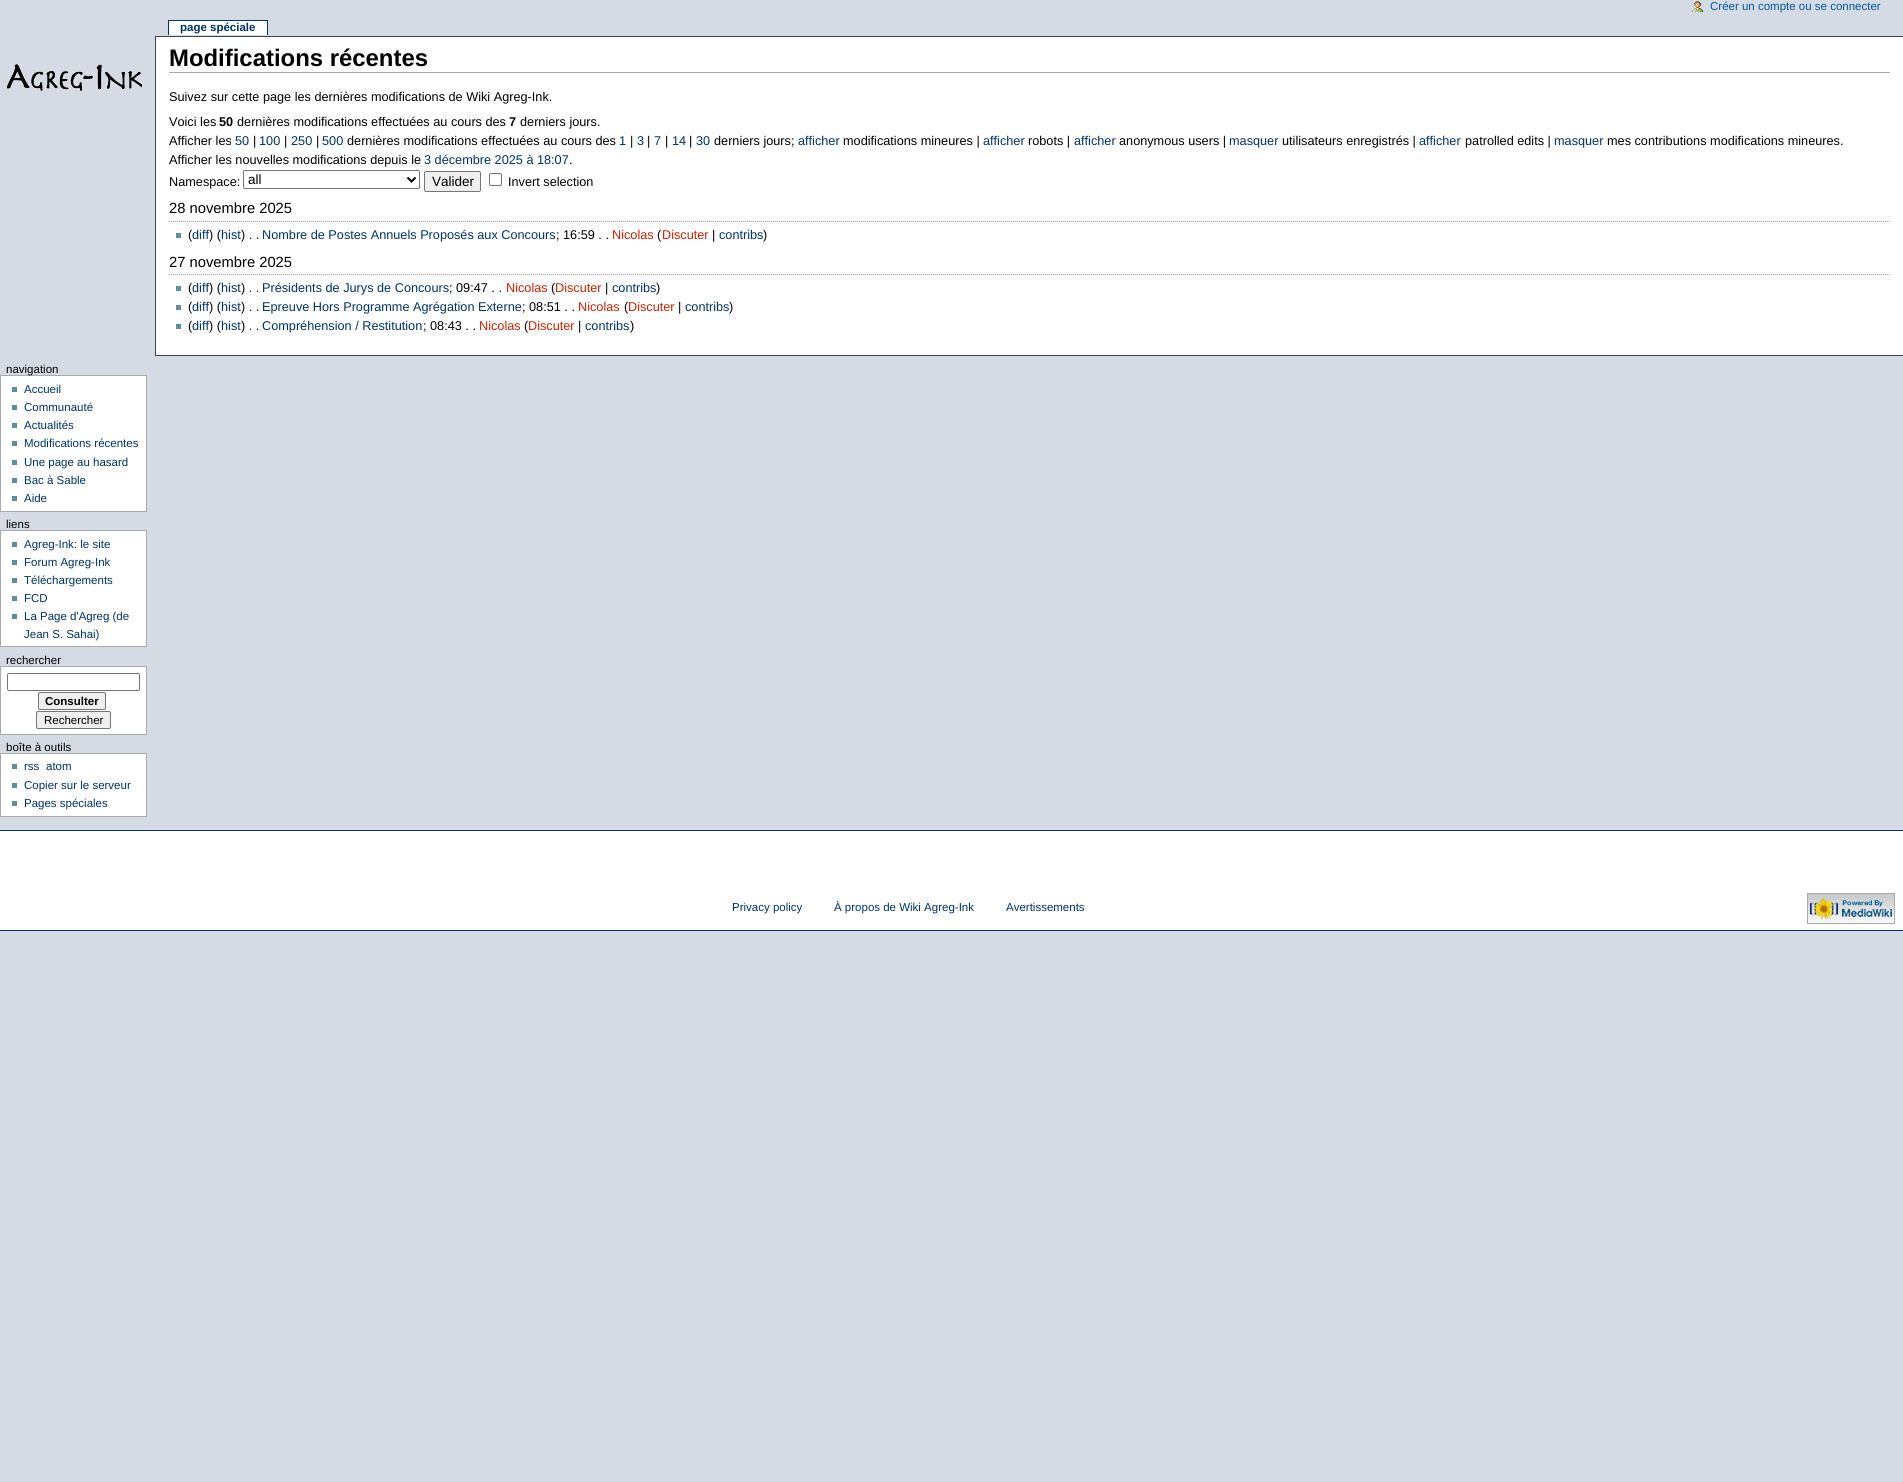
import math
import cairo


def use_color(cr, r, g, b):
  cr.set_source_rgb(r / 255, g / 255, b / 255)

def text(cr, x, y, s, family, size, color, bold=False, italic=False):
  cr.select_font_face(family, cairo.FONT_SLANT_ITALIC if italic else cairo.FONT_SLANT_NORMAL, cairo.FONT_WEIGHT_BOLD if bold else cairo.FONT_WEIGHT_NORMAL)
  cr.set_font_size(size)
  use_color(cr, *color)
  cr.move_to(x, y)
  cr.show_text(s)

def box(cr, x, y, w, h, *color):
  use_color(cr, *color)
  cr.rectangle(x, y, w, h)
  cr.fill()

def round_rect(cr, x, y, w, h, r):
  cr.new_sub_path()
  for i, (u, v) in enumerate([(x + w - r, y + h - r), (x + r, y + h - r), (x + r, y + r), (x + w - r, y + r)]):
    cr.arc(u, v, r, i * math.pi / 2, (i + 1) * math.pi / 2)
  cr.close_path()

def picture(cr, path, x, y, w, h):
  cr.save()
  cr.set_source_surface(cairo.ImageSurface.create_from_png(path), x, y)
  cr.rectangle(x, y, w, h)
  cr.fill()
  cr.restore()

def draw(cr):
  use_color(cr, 213, 219, 229)
  cr.paint()
  picture(cr, "img_01.png", 1692, 1, 11, 11)
  box(cr, 169, 21, 98, 14, 255, 255, 255)
  box(cr, 168, 20, 100, 1, 0, 51, 102)
  box(cr, 267, 20, 1, 15, 0, 51, 102)
  box(cr, 168, 20, 1, 15, 0, 51, 102)
  picture(cr, "img_02.png", 7, 64, 135, 27)
  use_color(cr, 255, 255, 255)
  cr.rectangle(0.5, 375.5, 146, 136)
  cr.fill_preserve()
  use_color(cr, 170, 170, 170)
  cr.set_line_width(1)
  cr.stroke()
  box(cr, 12, 387, 5, 5, 99, 140, 156)
  box(cr, 12, 405, 5, 5, 99, 140, 156)
  box(cr, 12, 423, 5, 5, 99, 140, 156)
  box(cr, 12, 441, 5, 5, 99, 140, 156)
  box(cr, 12, 460, 5, 5, 99, 140, 156)
  box(cr, 12, 478, 5, 5, 99, 140, 156)
  box(cr, 12, 496, 5, 5, 99, 140, 156)
  use_color(cr, 255, 255, 255)
  cr.rectangle(0.5, 530.5, 146, 116)
  cr.fill_preserve()
  use_color(cr, 170, 170, 170)
  cr.stroke()
  box(cr, 12, 542, 5, 5, 99, 140, 156)
  box(cr, 12, 560, 5, 5, 99, 140, 156)
  box(cr, 12, 578, 5, 5, 99, 140, 156)
  box(cr, 12, 596, 5, 5, 99, 140, 156)
  box(cr, 12, 614, 5, 5, 99, 140, 156)
  use_color(cr, 255, 255, 255)
  cr.rectangle(0.5, 666.5, 146, 68)
  cr.fill_preserve()
  use_color(cr, 170, 170, 170)
  cr.stroke()
  round_rect(cr, 7.5, 673.5, 132, 17, 1.5)
  use_color(cr, 118, 118, 118)
  cr.stroke()
  use_color(cr, 239, 239, 239)
  round_rect(cr, 38.5, 692.5, 67, 17, 1.5)
  cr.fill_preserve()
  use_color(cr, 118, 118, 118)
  cr.stroke()
  use_color(cr, 239, 239, 239)
  round_rect(cr, 36.5, 711.5, 74, 17, 1.5)
  cr.fill_preserve()
  use_color(cr, 118, 118, 118)
  cr.stroke()
  use_color(cr, 255, 255, 255)
  cr.rectangle(0.5, 753.5, 146, 63)
  cr.fill_preserve()
  use_color(cr, 170, 170, 170)
  cr.stroke()
  box(cr, 12, 764, 5, 5, 99, 140, 156)
  box(cr, 12, 783, 5, 5, 99, 140, 156)
  box(cr, 12, 801, 5, 5, 99, 140, 156)
  box(cr, 156, 37, 1747, 318, 255, 255, 255)
  box(cr, 155, 36, 1748, 1, 68, 68, 68)
  box(cr, 155, 355, 1748, 1, 68, 68, 68)
  box(cr, 155, 36, 1, 320, 68, 68, 68)
  box(cr, 169, 72, 1721, 1, 170, 170, 170)
  round_rect(cr, 243.5, 170.5, 176, 18, 1.5)
  use_color(cr, 118, 118, 118)
  cr.stroke()
  cr.new_path()
  cr.move_to(407.5, 177.5)
  cr.line_to(411.5, 181.5)
  cr.line_to(415.5, 177.5)
  use_color(cr, 0, 0, 0)
  cr.set_line_width(2)
  cr.stroke()
  use_color(cr, 239, 239, 239)
  round_rect(cr, 424.5, 171.5, 56, 20, 1.5)
  cr.fill_preserve()
  use_color(cr, 118, 118, 118)
  cr.set_line_width(1)
  cr.stroke()
  round_rect(cr, 489.5, 173.5, 12, 12, 1.5)
  cr.stroke()
  cr.new_path()
  cr.move_to(169, 221.5)
  cr.line_to(1890, 221.5)
  use_color(cr, 170, 170, 170)
  cr.set_dash([1, 1])
  cr.stroke()
  box(cr, 176, 233, 5, 5, 99, 140, 156)
  cr.new_path()
  cr.move_to(169, 274.5)
  cr.line_to(1890, 274.5)
  use_color(cr, 170, 170, 170)
  cr.stroke()
  box(cr, 176, 286, 5, 5, 99, 140, 156)
  box(cr, 176, 305, 5, 5, 99, 140, 156)
  box(cr, 176, 324, 5, 5, 99, 140, 156)
  box(cr, 0, 831, 1903, 99, 255, 255, 255)
  box(cr, 0, 830, 1903, 1, 0, 51, 102)
  box(cr, 0, 930, 1903, 1, 0, 51, 102)
  picture(cr, "img_03.png", 1807, 893, 88, 31)
  text(cr, 1710, 10, "Créer un compte ou se connecter", "Liberation Sans", 11.5, (0, 88, 150))
  text(cr, 180, 31, "page spéciale", "Liberation Sans", 11.5, (0, 51, 102), bold=True)
  text(cr, 6, 373, "navigation", "Liberation Sans", 11.5, (0, 0, 0))
  text(cr, 24, 393, "Accueil", "Liberation Sans", 11.5, (0, 51, 102))
  text(cr, 24, 411, "Communauté", "Liberation Sans", 11.5, (0, 51, 102))
  text(cr, 24, 429, "Actualités", "Liberation Sans", 11.5, (0, 51, 102))
  text(cr, 24, 447, "Modifications récentes", "Liberation Sans", 11.5, (0, 51, 102))
  text(cr, 24, 466, "Une page au hasard", "Liberation Sans", 11.5, (0, 51, 102))
  text(cr, 24, 484, "Bac à Sable", "Liberation Sans", 11.5, (0, 51, 102))
  text(cr, 24, 502, "Aide", "Liberation Sans", 11.5, (0, 51, 102))
  text(cr, 6, 528, "liens", "Liberation Sans", 11.5, (0, 0, 0))
  text(cr, 24, 548, "Agreg-Ink: le site", "Liberation Sans", 11.5, (0, 51, 102))
  text(cr, 24, 566, "Forum Agreg-Ink", "Liberation Sans", 11.5, (0, 51, 102))
  text(cr, 24, 584, "Téléchargements", "Liberation Sans", 11.5, (0, 51, 102))
  text(cr, 24, 602, "FCD", "Liberation Sans", 11.5, (0, 51, 102))
  text(cr, 24, 620, "La Page d'Agreg (de", "Liberation Sans", 11.5, (0, 51, 102))
  text(cr, 24, 638, "Jean S. Sahai)", "Liberation Sans", 11.5, (0, 51, 102))
  text(cr, 6, 664, "rechercher", "Liberation Sans", 11.5, (0, 0, 0))
  text(cr, 45, 705, "Consulter", "Liberation Sans", 11.5, (0, 0, 0), bold=True)
  text(cr, 44, 724, "Rechercher", "Liberation Sans", 11.5, (0, 0, 0))
  text(cr, 6, 751, "boîte à outils", "Liberation Sans", 11.5, (0, 0, 0))
  text(cr, 24, 770, "rss", "Liberation Sans", 11.5, (0, 51, 102))
  text(cr, 46, 770, "atom", "Liberation Sans", 11.5, (0, 51, 102))
  text(cr, 24, 789, "Copier sur le serveur", "Liberation Sans", 11.5, (0, 51, 102))
  text(cr, 24, 807, "Pages spéciales", "Liberation Sans", 11.5, (0, 51, 102))
  text(cr, 169, 66, "Modifications récentes", "Liberation Sans", 23.9, (0, 0, 0), bold=True)
  text(cr, 169, 101, "Suivez sur cette page les dernières modifications de Wiki Agreg-Ink.", "Liberation Sans", 12.7, (0, 0, 0))
  text(cr, 169, 126, "Voici les", "Liberation Sans", 12.7, (0, 0, 0))
  text(cr, 219, 126, "50", "Liberation Sans", 12.7, (0, 0, 0), bold=True)
  text(cr, 237, 126, "dernières modifications effectuées au cours des", "Liberation Sans", 12.7, (0, 0, 0))
  text(cr, 509, 126, "7", "Liberation Sans", 12.7, (0, 0, 0), bold=True)
  text(cr, 520, 126, "derniers jours.", "Liberation Sans", 12.7, (0, 0, 0))
  text(cr, 169, 145, "Afficher les", "Liberation Sans", 12.7, (0, 0, 0))
  text(cr, 235, 145, "50", "Liberation Sans", 12.7, (0, 51, 102))
  text(cr, 253, 145, "|", "Liberation Sans", 12.7, (0, 0, 0))
  text(cr, 259, 145, "100", "Liberation Sans", 12.7, (0, 51, 102))
  text(cr, 284, 145, "|", "Liberation Sans", 12.7, (0, 0, 0))
  text(cr, 291, 145, "250", "Liberation Sans", 12.7, (0, 51, 102))
  text(cr, 316, 145, "|", "Liberation Sans", 12.7, (0, 0, 0))
  text(cr, 322, 145, "500", "Liberation Sans", 12.7, (0, 51, 102))
  text(cr, 347, 145, "dernières modifications effectuées au cours des", "Liberation Sans", 12.7, (0, 0, 0))
  text(cr, 619, 145, "1", "Liberation Sans", 12.7, (0, 51, 102))
  text(cr, 630, 145, "|", "Liberation Sans", 12.7, (0, 0, 0))
  text(cr, 637, 145, "3", "Liberation Sans", 12.7, (0, 51, 102))
  text(cr, 647, 145, "|", "Liberation Sans", 12.7, (0, 0, 0))
  text(cr, 654, 145, "7", "Liberation Sans", 12.7, (0, 51, 102))
  text(cr, 665, 145, "|", "Liberation Sans", 12.7, (0, 0, 0))
  text(cr, 672, 145, "14", "Liberation Sans", 12.7, (0, 51, 102))
  text(cr, 689, 145, "|", "Liberation Sans", 12.7, (0, 0, 0))
  text(cr, 696, 145, "30", "Liberation Sans", 12.7, (0, 51, 102))
  text(cr, 714, 145, "derniers jours;", "Liberation Sans", 12.7, (0, 0, 0))
  text(cr, 798, 145, "afficher", "Liberation Sans", 12.7, (0, 51, 102))
  text(cr, 843, 145, "modifications mineures |", "Liberation Sans", 12.7, (0, 0, 0))
  text(cr, 983, 145, "afficher", "Liberation Sans", 12.7, (0, 51, 102))
  text(cr, 1028, 145, "robots |", "Liberation Sans", 12.7, (0, 0, 0))
  text(cr, 1074, 145, "afficher", "Liberation Sans", 12.7, (0, 51, 102))
  text(cr, 1119, 145, "anonymous users |", "Liberation Sans", 12.7, (0, 0, 0))
  text(cr, 1229, 145, "masquer", "Liberation Sans", 12.7, (0, 51, 102))
  text(cr, 1282, 145, "utilisateurs enregistrés |", "Liberation Sans", 12.7, (0, 0, 0))
  text(cr, 1419, 145, "afficher", "Liberation Sans", 12.7, (0, 51, 102))
  text(cr, 1465, 145, "patrolled edits |", "Liberation Sans", 12.7, (0, 0, 0))
  text(cr, 1554, 145, "masquer", "Liberation Sans", 12.7, (0, 51, 102))
  text(cr, 1607, 145, "mes contributions modifications mineures.", "Liberation Sans", 12.7, (0, 0, 0))
  text(cr, 169, 164, "Afficher les nouvelles modifications depuis le", "Liberation Sans", 12.7, (0, 0, 0))
  text(cr, 424, 164, "3 décembre 2025 à 18:07", "Liberation Sans", 12.7, (0, 51, 102))
  text(cr, 569, 164, ".", "Liberation Sans", 12.7, (0, 0, 0))
  text(cr, 169, 186, "Namespace:", "Liberation Sans", 12.7, (0, 0, 0))
  text(cr, 248, 184, "all", "Liberation Sans", 13.5, (0, 0, 0))
  text(cr, 432, 186, "Valider", "Liberation Sans", 13.5, (0, 0, 0))
  text(cr, 508, 186, "Invert selection", "Liberation Sans", 12.7, (0, 0, 0))
  text(cr, 169, 213, "28 novembre 2025", "Liberation Sans", 14.75, (0, 0, 0))
  text(cr, 188, 239, "(", "Liberation Sans", 12.7, (0, 0, 0))
  text(cr, 192, 239, "diff", "Liberation Sans", 12.7, (0, 51, 102))
  text(cr, 209, 239, ") (", "Liberation Sans", 12.7, (0, 0, 0))
  text(cr, 221, 239, "hist", "Liberation Sans", 12.7, (0, 51, 102))
  text(cr, 241, 239, ") . .", "Liberation Sans", 12.7, (0, 0, 0))
  text(cr, 262, 239, "Nombre de Postes Annuels Proposés aux Concours", "Liberation Sans", 12.7, (0, 51, 102))
  text(cr, 556, 239, "; 16:59 . .", "Liberation Sans", 12.7, (0, 0, 0))
  text(cr, 612, 239, "Nicolas", "Liberation Sans", 12.7, (204, 34, 0))
  text(cr, 657, 239, "(", "Liberation Sans", 12.7, (0, 0, 0))
  text(cr, 662, 239, "Discuter", "Liberation Sans", 12.7, (204, 34, 0))
  text(cr, 712, 239, "|", "Liberation Sans", 12.7, (0, 0, 0))
  text(cr, 719, 239, "contribs", "Liberation Sans", 12.7, (0, 51, 102))
  text(cr, 763, 239, ")", "Liberation Sans", 12.7, (0, 0, 0))
  text(cr, 169, 267, "27 novembre 2025", "Liberation Sans", 14.75, (0, 0, 0))
  text(cr, 188, 292, "(", "Liberation Sans", 12.7, (0, 0, 0))
  text(cr, 192, 292, "diff", "Liberation Sans", 12.7, (0, 51, 102))
  text(cr, 209, 292, ") (", "Liberation Sans", 12.7, (0, 0, 0))
  text(cr, 221, 292, "hist", "Liberation Sans", 12.7, (0, 51, 102))
  text(cr, 241, 292, ") . .", "Liberation Sans", 12.7, (0, 0, 0))
  text(cr, 262, 292, "Présidents de Jurys de Concours", "Liberation Sans", 12.7, (0, 51, 102))
  text(cr, 449, 292, "; 09:47 . .", "Liberation Sans", 12.7, (0, 0, 0))
  text(cr, 506, 292, "Nicolas", "Liberation Sans", 12.7, (204, 34, 0))
  text(cr, 551, 292, "(", "Liberation Sans", 12.7, (0, 0, 0))
  text(cr, 555, 292, "Discuter", "Liberation Sans", 12.7, (204, 34, 0))
  text(cr, 605, 292, "|", "Liberation Sans", 12.7, (0, 0, 0))
  text(cr, 612, 292, "contribs", "Liberation Sans", 12.7, (0, 51, 102))
  text(cr, 656, 292, ")", "Liberation Sans", 12.7, (0, 0, 0))
  text(cr, 188, 311, "(", "Liberation Sans", 12.7, (0, 0, 0))
  text(cr, 192, 311, "diff", "Liberation Sans", 12.7, (0, 51, 102))
  text(cr, 209, 311, ") (", "Liberation Sans", 12.7, (0, 0, 0))
  text(cr, 221, 311, "hist", "Liberation Sans", 12.7, (0, 51, 102))
  text(cr, 241, 311, ") . .", "Liberation Sans", 12.7, (0, 0, 0))
  text(cr, 262, 311, "Epreuve Hors Programme Agrégation Externe", "Liberation Sans", 12.7, (0, 51, 102))
  text(cr, 522, 311, "; 08:51 . .", "Liberation Sans", 12.7, (0, 0, 0))
  text(cr, 578, 311, "Nicolas", "Liberation Sans", 12.7, (204, 34, 0))
  text(cr, 624, 311, "(", "Liberation Sans", 12.7, (0, 0, 0))
  text(cr, 628, 311, "Discuter", "Liberation Sans", 12.7, (204, 34, 0))
  text(cr, 678, 311, "|", "Liberation Sans", 12.7, (0, 0, 0))
  text(cr, 685, 311, "contribs", "Liberation Sans", 12.7, (0, 51, 102))
  text(cr, 729, 311, ")", "Liberation Sans", 12.7, (0, 0, 0))
  text(cr, 188, 330, "(", "Liberation Sans", 12.7, (0, 0, 0))
  text(cr, 192, 330, "diff", "Liberation Sans", 12.7, (0, 51, 102))
  text(cr, 209, 330, ") (", "Liberation Sans", 12.7, (0, 0, 0))
  text(cr, 221, 330, "hist", "Liberation Sans", 12.7, (0, 51, 102))
  text(cr, 241, 330, ") . .", "Liberation Sans", 12.7, (0, 0, 0))
  text(cr, 262, 330, "Compréhension / Restitution", "Liberation Sans", 12.7, (0, 51, 102))
  text(cr, 423, 330, "; 08:43 . .", "Liberation Sans", 12.7, (0, 0, 0))
  text(cr, 479, 330, "Nicolas", "Liberation Sans", 12.7, (204, 34, 0))
  text(cr, 524, 330, "(", "Liberation Sans", 12.7, (0, 0, 0))
  text(cr, 528, 330, "Discuter", "Liberation Sans", 12.7, (204, 34, 0))
  text(cr, 578, 330, "|", "Liberation Sans", 12.7, (0, 0, 0))
  text(cr, 585, 330, "contribs", "Liberation Sans", 12.7, (0, 51, 102))
  text(cr, 630, 330, ")", "Liberation Sans", 12.7, (0, 0, 0))
  text(cr, 732, 911, "Privacy policy", "Liberation Sans", 11.5, (0, 51, 102))
  text(cr, 834, 911, "À propos de Wiki Agreg-Ink", "Liberation Sans", 11.5, (0, 51, 102))
  text(cr, 1006, 911, "Avertissements", "Liberation Sans", 11.5, (0, 51, 102))


surface = cairo.ImageSurface(cairo.FORMAT_RGB24, 1903, 1482)
cr = cairo.Context(surface)
options = cairo.FontOptions()
options.set_hint_metrics(cairo.HINT_METRICS_OFF)
options.set_hint_style(cairo.HINT_STYLE_NONE)
cr.set_font_options(options)
cr.set_miter_limit(4)
draw(cr)
surface.write_to_png("out.png")
